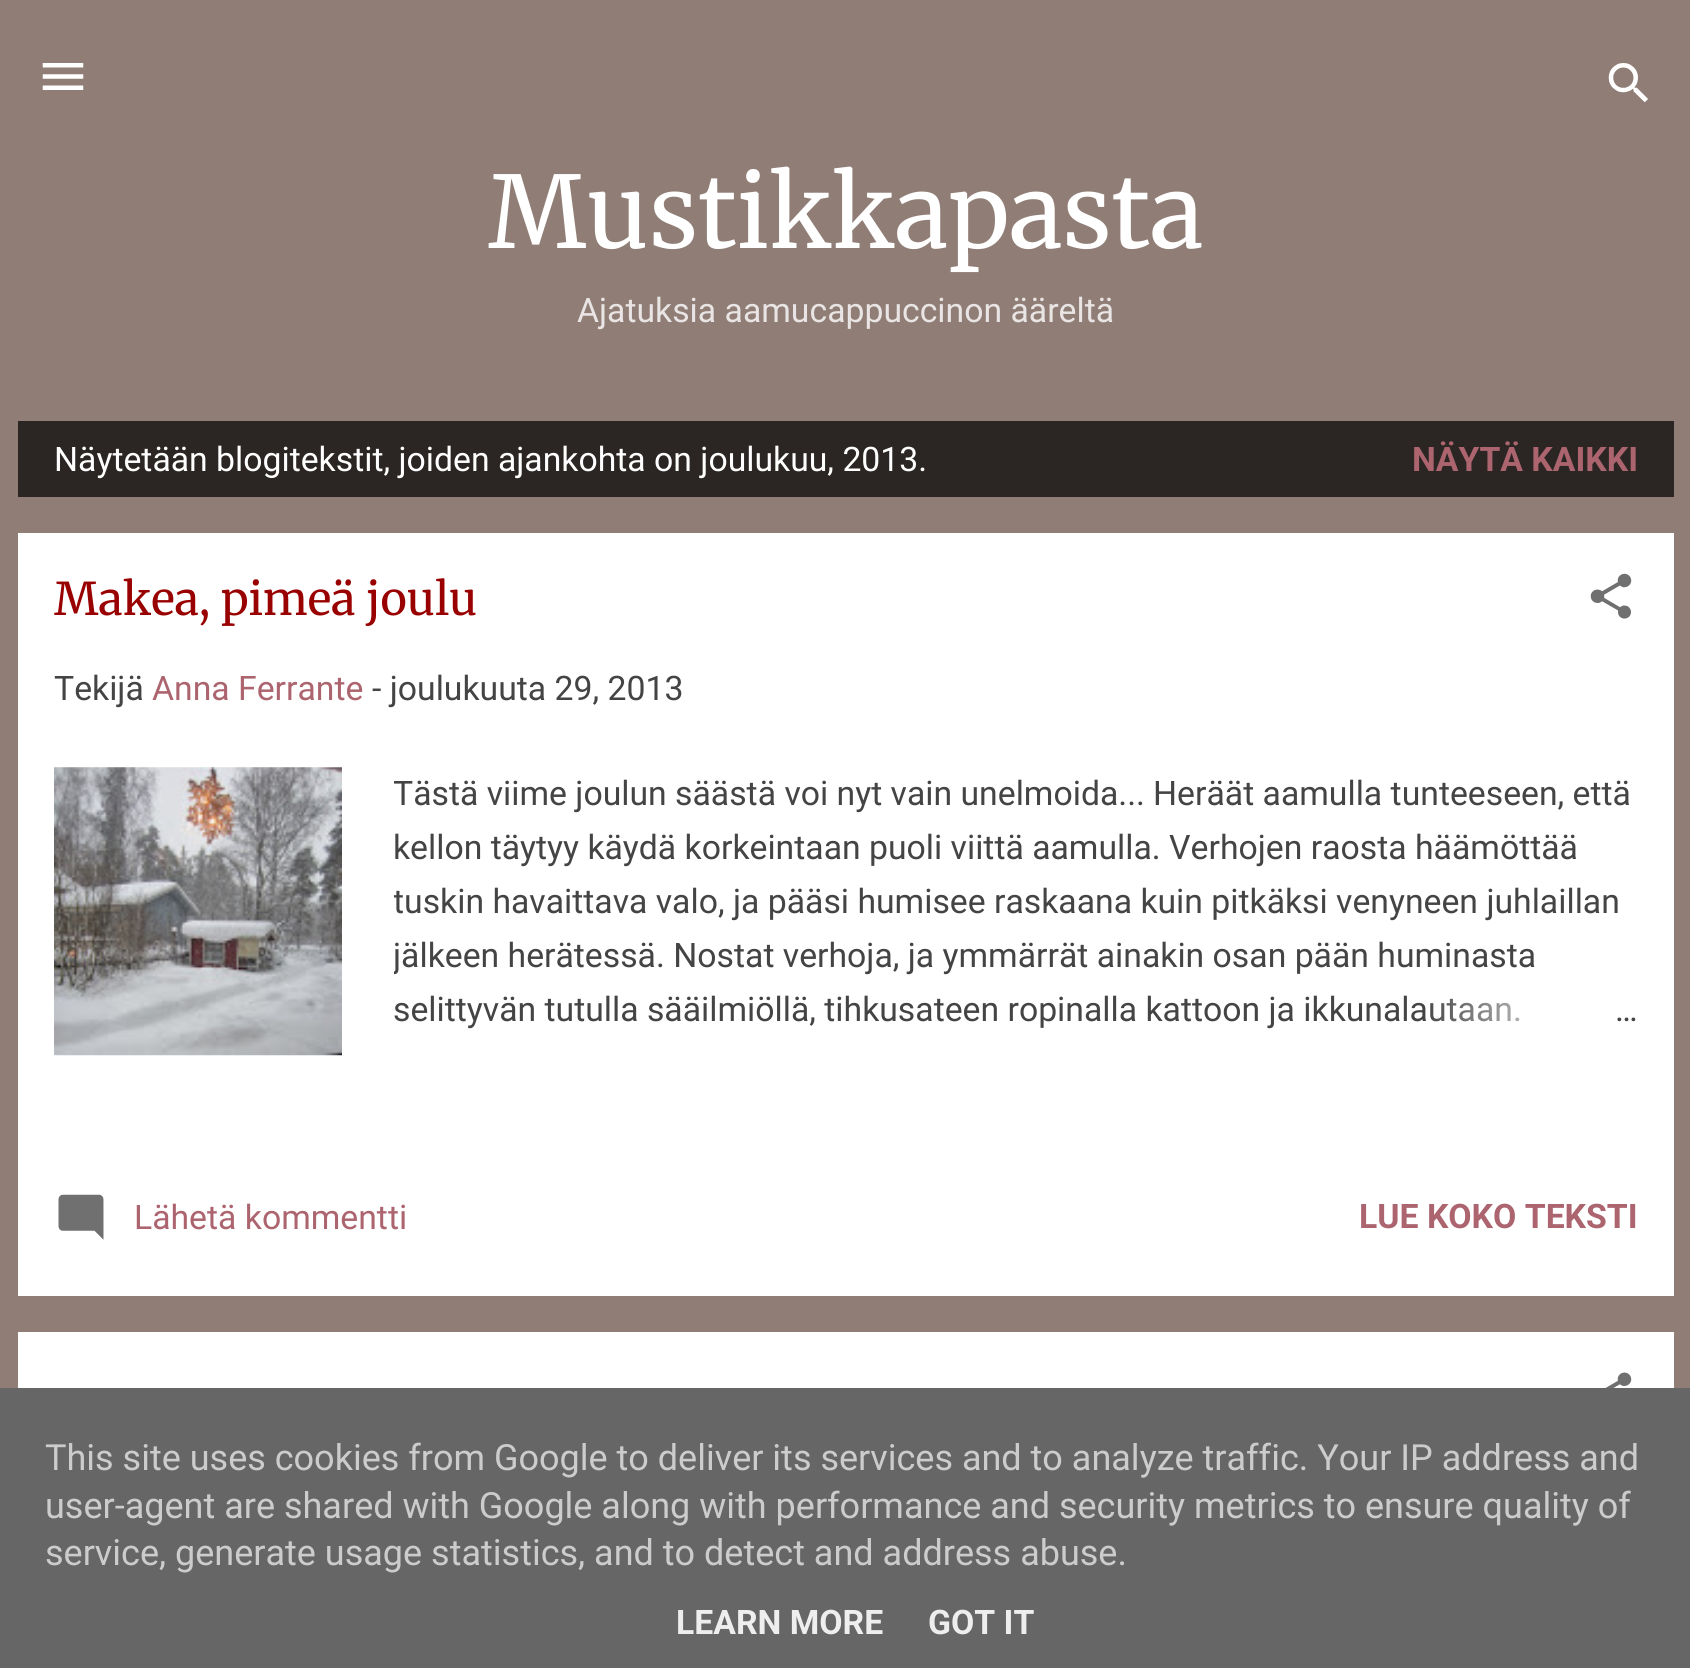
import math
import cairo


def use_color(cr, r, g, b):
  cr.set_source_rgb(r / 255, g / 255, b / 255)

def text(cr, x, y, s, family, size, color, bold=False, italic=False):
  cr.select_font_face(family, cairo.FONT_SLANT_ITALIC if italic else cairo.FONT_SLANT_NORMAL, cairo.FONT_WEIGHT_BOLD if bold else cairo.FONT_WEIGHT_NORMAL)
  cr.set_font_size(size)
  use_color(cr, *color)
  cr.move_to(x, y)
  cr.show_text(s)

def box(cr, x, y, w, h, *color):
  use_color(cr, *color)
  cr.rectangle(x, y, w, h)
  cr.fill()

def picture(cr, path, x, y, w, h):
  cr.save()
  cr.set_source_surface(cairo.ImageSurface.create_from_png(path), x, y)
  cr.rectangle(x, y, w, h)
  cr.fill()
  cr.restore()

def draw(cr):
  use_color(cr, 144, 126, 118)
  cr.paint()
  picture(cr, "img_01.png", 42, 63, 42, 27)
  picture(cr, "img_02.png", 1608, 63, 40, 40)
  box(cr, 18, 421, 1656, 76, 43, 38, 35)
  box(cr, 18, 533, 1656, 763, 255, 255, 255)
  picture(cr, "img_03.png", 1590, 573, 42, 46)
  picture(cr, "img_04.png", 54, 767, 288, 289)
  picture(cr, "img_05.png", 58, 1194, 46, 46)
  box(cr, 18, 1332, 1656, 56, 255, 255, 255)
  picture(cr, "img_06.png", 1605, 1372, 27, 16)
  box(cr, 0, 1388, 1690, 280, 102, 102, 102)
  text(cr, 488, 248, "Mustikkapasta", "Merriweather Light", 99.5, (255, 255, 255))
  text(cr, 577, 322, "Ajatuksia aamucappuccinon ääreltä", "Roboto", 33.75, (233, 229, 228))
  text(cr, 54, 471, "Näytetään blogitekstit, joiden ajankohta on joulukuu, 2013.", "Roboto", 33.75, (255, 255, 255))
  text(cr, 1412, 471, "NÄYTÄ KAIKKI", "Roboto", 33.75, (172, 100, 111), bold=True)
  text(cr, 54, 615, "Makea, pimeä joulu", "Merriweather Light", 45, (153, 0, 0))
  text(cr, 54, 700, "Tekijä", "Roboto", 33.75, (68, 68, 68))
  text(cr, 152, 700, "Anna Ferrante", "Roboto", 33.75, (172, 100, 111))
  text(cr, 372, 700, "- joulukuuta 29, 2013", "Roboto", 33.75, (68, 68, 68))
  cr.save()
  cr.rectangle(394, 767, 1244, 270)
  cr.clip()
  text(cr, 393, 805, "Tästä viime joulun säästä voi nyt vain unelmoida...", "Roboto", 33.75, (68, 68, 68))
  cr.restore()
  text(cr, 1153, 805, "Heräät aamulla tunteeseen, että", "Roboto", 33.75, (68, 68, 68))
  text(cr, 393, 859, "kellon täytyy käydä korkeintaan puoli viittä aamulla. Verhojen raosta häämöttää", "Roboto", 33.75, (68, 68, 68))
  cr.save()
  cr.rectangle(394, 767, 1244, 270)
  cr.clip()
  text(cr, 393, 913, "tuskin havaittava valo, ja pääsi humisee raskaana kuin pitkäksi venyneen juhlaillan", "Roboto", 33.75, (68, 68, 68))
  text(cr, 393, 967, "jälkeen herätessä. Nostat verhoja, ja ymmärrät ainakin osan pään huminasta", "Roboto", 33.75, (68, 68, 68))
  cr.restore()
  text(cr, 393, 1021, "selittyvän tutulla sääilmiöllä, tihkusateen ropinalla kattoon ja ikkunalautaan.", "Roboto", 33.75, (68, 68, 68))
  gradient = cairo.LinearGradient(1638, 1010, 1422, 1010)
  gradient.add_color_stop_rgba(0, 1, 1, 1, 1)
  gradient.add_color_stop_rgba(0.2, 1, 1, 1, 1)
  gradient.add_color_stop_rgba(1, 1, 1, 1, 0)
  cr.set_source(gradient)
  cr.rectangle(1430, 998, 89, 24)
  cr.fill()
  text(cr, 1615, 1021, "…", "Roboto", 33.75, (68, 68, 68))
  text(cr, 134, 1229, "Lähetä kommentti", "Roboto", 33.75, (172, 100, 111))
  text(cr, 1359, 1228, "LUE KOKO TEKSTI", "Roboto", 33.75, (172, 100, 111), bold=True)
  text(cr, 45, 1470, "This site uses cookies from Google to deliver its services and to analyze traffic. Your IP address and", "Roboto", 36, (204, 204, 204))
  text(cr, 45, 1518, "user-agent are shared with Google along with performance and security metrics to ensure quality of", "Roboto", 36, (204, 204, 204))
  text(cr, 45, 1565, "service, generate usage statistics, and to detect and address abuse.", "Roboto", 36, (204, 204, 204))
  text(cr, 676, 1634, "LEARN MORE", "Roboto", 33.75, (238, 238, 238), bold=True)
  text(cr, 928, 1634, "GOT IT", "Roboto", 33.75, (238, 238, 238), bold=True)


surface = cairo.ImageSurface(cairo.FORMAT_RGB24, 1690, 1668)
cr = cairo.Context(surface)
options = cairo.FontOptions()
options.set_hint_metrics(cairo.HINT_METRICS_OFF)
options.set_hint_style(cairo.HINT_STYLE_NONE)
cr.set_font_options(options)
cr.set_miter_limit(4)
draw(cr)
surface.write_to_png("out.png")
